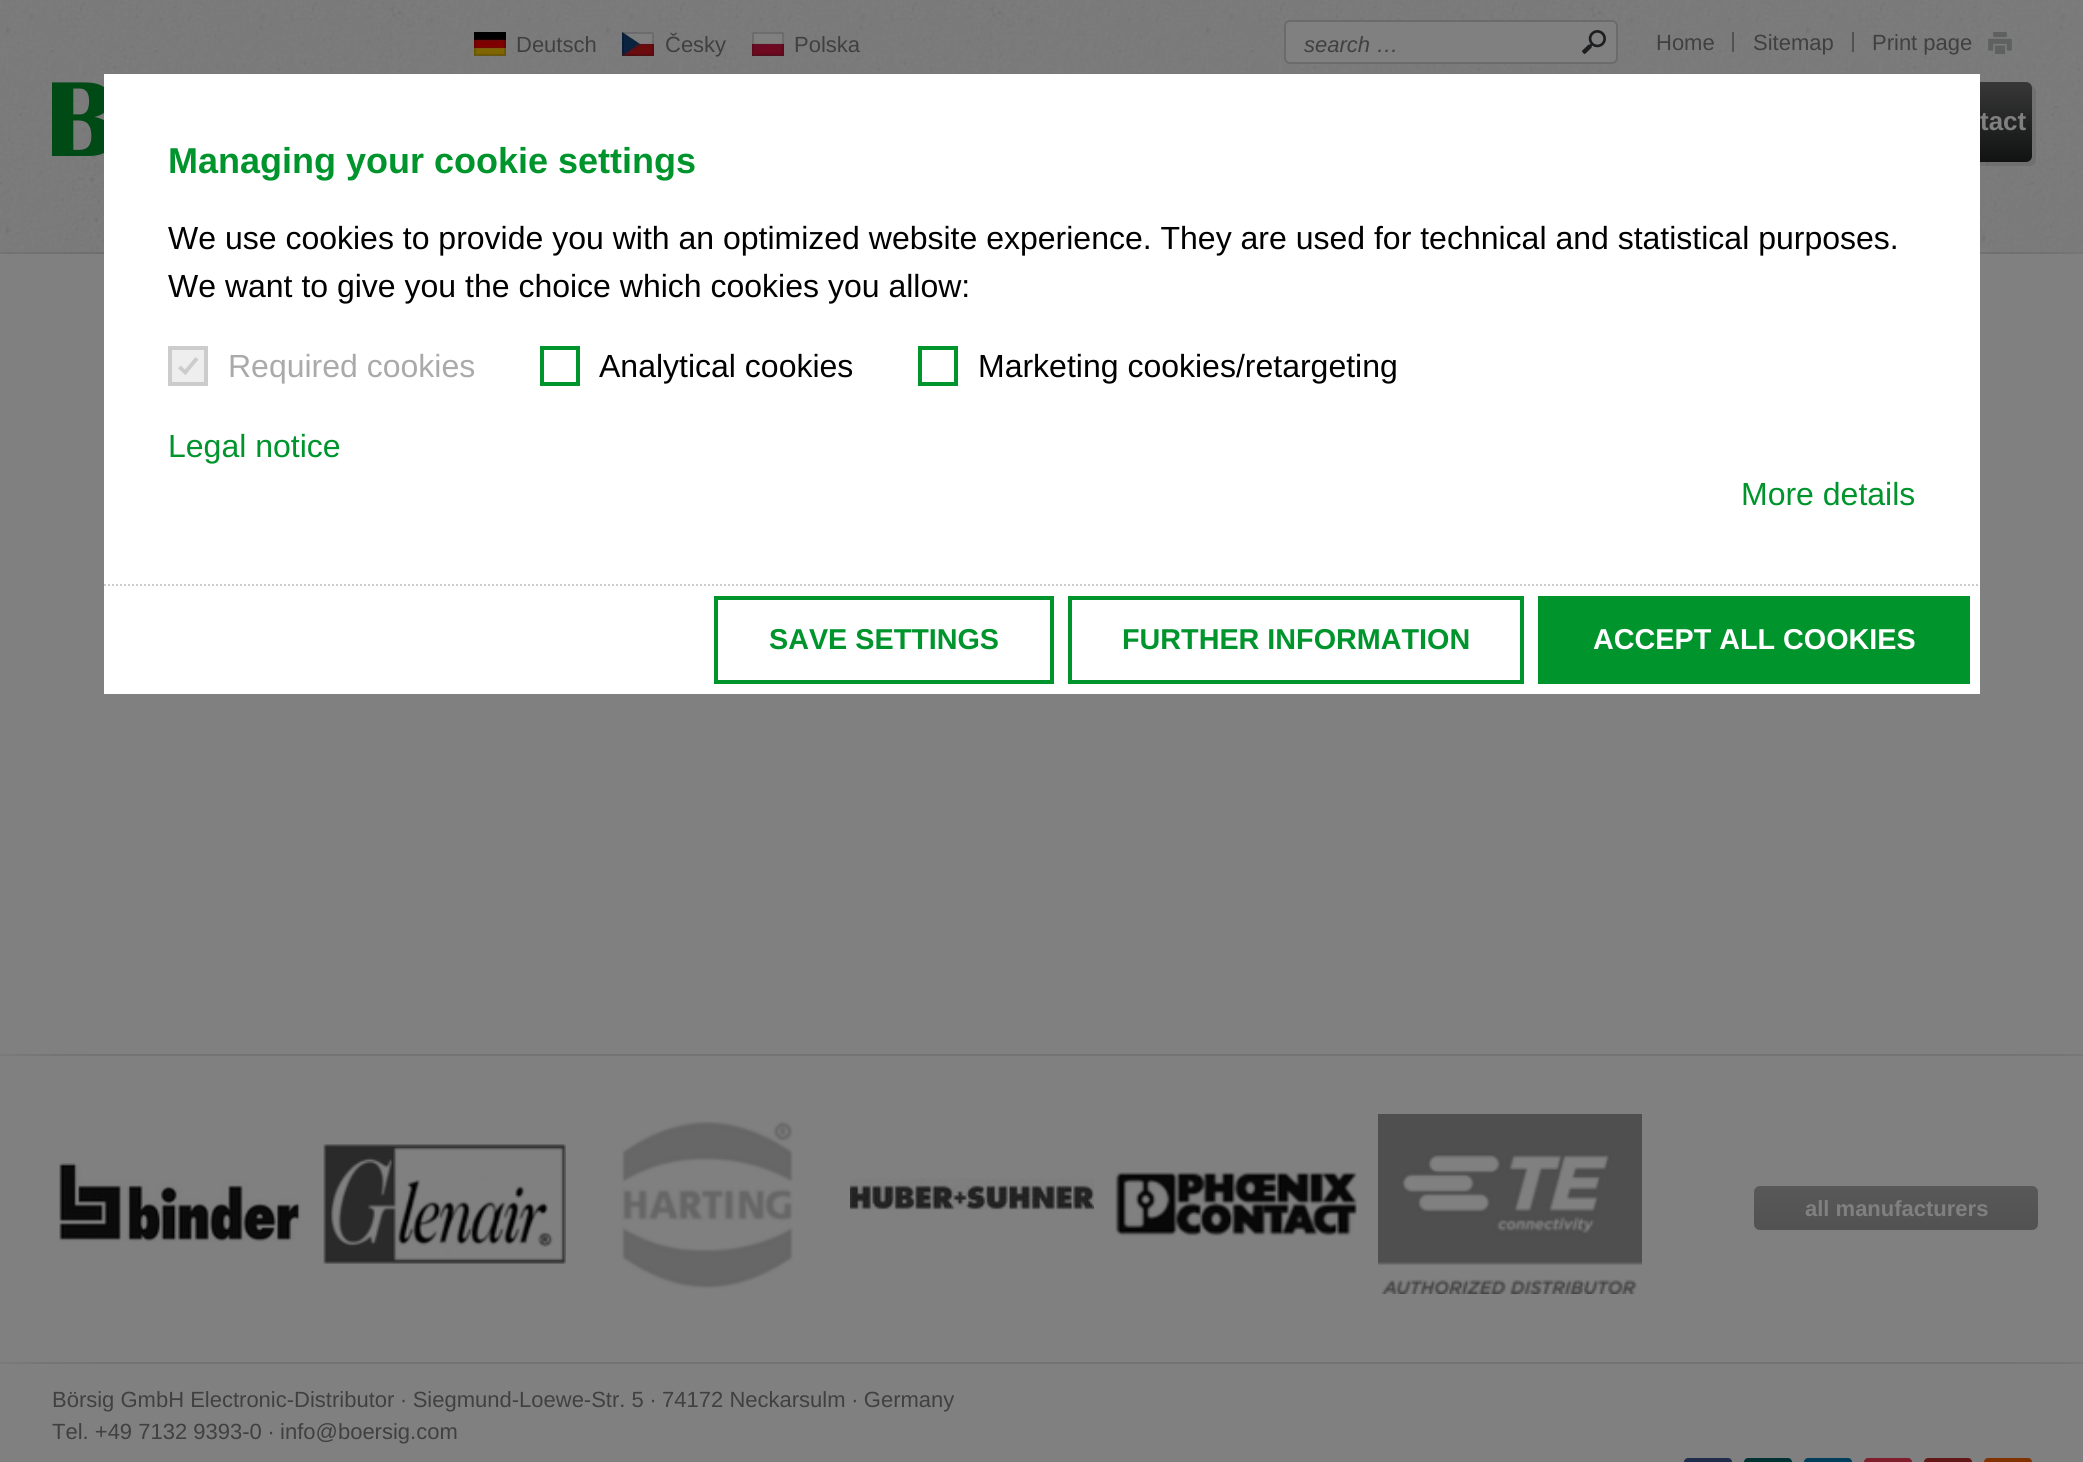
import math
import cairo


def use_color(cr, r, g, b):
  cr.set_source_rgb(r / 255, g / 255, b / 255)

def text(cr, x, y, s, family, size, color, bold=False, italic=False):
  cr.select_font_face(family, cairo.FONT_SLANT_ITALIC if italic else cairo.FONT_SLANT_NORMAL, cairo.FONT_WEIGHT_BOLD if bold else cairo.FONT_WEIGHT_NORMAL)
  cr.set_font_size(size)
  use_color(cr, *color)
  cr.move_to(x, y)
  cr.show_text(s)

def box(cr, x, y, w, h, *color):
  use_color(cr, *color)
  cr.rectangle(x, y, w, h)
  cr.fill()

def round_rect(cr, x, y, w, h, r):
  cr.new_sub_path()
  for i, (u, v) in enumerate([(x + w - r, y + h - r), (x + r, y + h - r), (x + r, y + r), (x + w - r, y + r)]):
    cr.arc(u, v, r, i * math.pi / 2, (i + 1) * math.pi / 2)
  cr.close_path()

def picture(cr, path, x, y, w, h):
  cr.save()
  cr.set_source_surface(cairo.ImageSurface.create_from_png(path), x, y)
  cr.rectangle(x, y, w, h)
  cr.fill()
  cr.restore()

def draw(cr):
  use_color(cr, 128, 128, 128)
  cr.paint()
  picture(cr, "img_01.png", 0, 0, 2083, 254)
  picture(cr, "img_02.png", 0, 252, 2083, 2)
  picture(cr, "img_03.png", 52, 82, 52, 74)
  picture(cr, "img_04.png", 474, 32, 32, 24)
  picture(cr, "img_05.png", 622, 32, 32, 24)
  picture(cr, "img_06.png", 752, 32, 32, 24)
  use_color(cr, 128, 128, 128)
  round_rect(cr, 1285, 21, 332, 42, 5)
  cr.fill_preserve()
  use_color(cr, 107, 107, 107)
  cr.stroke()
  picture(cr, "img_07.png", 1582, 30, 24, 24)
  box(cr, 1732, 32, 2, 20, 82, 82, 82)
  box(cr, 1852, 32, 2, 20, 82, 82, 82)
  picture(cr, "img_08.png", 1988, 32, 24, 22)
  cr.set_source_rgba(0.341, 0.341, 0.341, 0.3)
  cr.new_path()
  cr.move_to(460, 162)
  cr.curve_to(461, 164, 463, 166, 466, 166)
  cr.line_to(2030, 166)
  cr.curve_to(2033, 166, 2036, 163, 2036, 160)
  cr.line_to(2036, 92)
  cr.curve_to(2036, 89, 2034, 87, 2032, 86)
  cr.line_to(2032, 145)
  cr.curve_to(2032, 149, 2035, 162, 2026, 162)
  cr.close_path()
  cr.fill()
  gradient = cairo.LinearGradient(1244, 82, 1244, 162)
  gradient.add_color_stop_rgba(0, 0.216, 0.216, 0.216, 1)
  gradient.add_color_stop_rgba(1, 0.067, 0.071, 0.071, 1)
  cr.set_source(gradient)
  round_rect(cr, 456, 82, 1576, 80, 6)
  cr.fill()
  picture(cr, "img_09.png", 0, 1054, 2083, 2)
  picture(cr, "img_10.png", 59, 1163, 242, 79)
  picture(cr, "img_11.png", 323, 1144, 243, 120)
  picture(cr, "img_12.png", 621, 1121, 172, 168)
  picture(cr, "img_13.png", 850, 1178, 244, 32)
  picture(cr, "img_14.png", 1115, 1172, 242, 64)
  picture(cr, "img_15.png", 1378, 1114, 264, 180)
  gradient = cairo.LinearGradient(1896, 1186, 1896, 1230)
  gradient.add_color_stop_rgba(0, 0.345, 0.345, 0.345, 1)
  gradient.add_color_stop_rgba(1, 0.322, 0.322, 0.322, 1)
  cr.set_source(gradient)
  round_rect(cr, 1754, 1186, 284, 44, 6)
  cr.fill()
  picture(cr, "img_09.png", 0, 1362, 2083, 2)
  use_color(cr, 30, 45, 76)
  round_rect(cr, 1684, 1458, 48, 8, 4)
  cr.fill()
  use_color(cr, 1, 50, 51)
  round_rect(cr, 1744, 1458, 48, 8, 4)
  cr.fill()
  use_color(cr, 0, 62, 91)
  round_rect(cr, 1804, 1458, 48, 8, 4)
  cr.fill()
  use_color(cr, 126, 29, 44)
  round_rect(cr, 1864, 1458, 48, 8, 4)
  cr.fill()
  use_color(cr, 98, 24, 22)
  round_rect(cr, 1924, 1458, 48, 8, 4)
  cr.fill()
  use_color(cr, 128, 51, 0)
  round_rect(cr, 1984, 1458, 48, 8, 4)
  cr.fill()
  box(cr, 104, 74, 1876, 620, 255, 255, 255)
  use_color(cr, 238, 238, 238)
  cr.rectangle(170, 348, 36, 36)
  cr.fill_preserve()
  use_color(cr, 204, 204, 204)
  cr.set_line_width(4)
  cr.stroke()
  cr.new_path()
  cr.move_to(182.5, 372.5)
  cr.line_to(195.5, 357)
  cr.line_to(198.5, 359.5)
  cr.line_to(185.5, 375)
  cr.close_path()
  cr.fill()
  cr.new_path()
  cr.move_to(178, 368.5)
  cr.line_to(180.5, 365.5)
  cr.line_to(188, 372)
  cr.line_to(185.5, 375)
  cr.close_path()
  cr.fill()
  cr.rectangle(542, 348, 36, 36)
  use_color(cr, 0, 148, 45)
  cr.stroke()
  cr.rectangle(920, 348, 36, 36)
  cr.stroke()
  cr.new_path()
  cr.move_to(104, 585)
  cr.line_to(1980, 585)
  use_color(cr, 204, 204, 204)
  cr.set_line_width(2)
  cr.set_dash([2, 2])
  cr.stroke()
  cr.rectangle(716, 598, 336, 84)
  use_color(cr, 0, 148, 45)
  cr.set_line_width(4)
  cr.set_dash([])
  cr.stroke()
  cr.rectangle(1070, 598, 452, 84)
  cr.stroke()
  box(cr, 1538, 596, 432, 88, 0, 148, 45)
  text(cr, 516, 52, "Deutsch", "Liberation Sans", 22, (64, 64, 64))
  text(cr, 665, 52, "Česky", "Liberation Sans", 22, (64, 64, 64))
  text(cr, 794, 52, "Polska", "Liberation Sans", 22, (64, 64, 64))
  text(cr, 1304, 52, "search …", "Liberation Sans", 22, (64, 64, 64), italic=True)
  text(cr, 1656, 50, "Home", "Liberation Sans", 22, (64, 64, 64))
  text(cr, 1753, 50, "Sitemap", "Liberation Sans", 22, (64, 64, 64))
  text(cr, 1872, 50, "Print page", "Liberation Sans", 22, (64, 64, 64))
  text(cr, 1980, 130, "tact", "Liberation Sans", 26, (128, 128, 128), bold=True)
  text(cr, 1805, 1216, "all manufacturers", "Liberation Sans", 22, (128, 128, 128), bold=True)
  text(cr, 52, 1407, "Börsig GmbH Electronic-Distributor ∙ Siegmund-Loewe-Str. 5 ∙ 74172 Neckarsulm ∙ Germany", "Liberation Sans", 22, (64, 64, 64))
  text(cr, 52, 1439, "Tel. +49 7132 9393-0 ∙ info@boersig.com", "Liberation Sans", 22, (64, 64, 64))
  text(cr, 168, 173, "Managing your cookie settings", "Liberation Sans", 36, (0, 148, 45), bold=True)
  text(cr, 168, 249, "We use cookies to provide you with an optimized website experience. They are used for technical and statistical purposes.", "Liberation Sans", 32, (0, 0, 0))
  text(cr, 168, 297, "We want to give you the choice which cookies you allow:", "Liberation Sans", 32, (0, 0, 0))
  text(cr, 228, 377, "Required cookies", "Liberation Sans", 32, (170, 170, 170))
  text(cr, 599, 377, "Analytical cookies", "Liberation Sans", 32, (0, 0, 0))
  text(cr, 978, 377, "Marketing cookies/retargeting", "Liberation Sans", 32, (0, 0, 0))
  text(cr, 168, 457, "Legal notice", "Liberation Sans", 32, (0, 148, 45))
  text(cr, 1741, 505, "More details", "Liberation Sans", 32, (0, 148, 45))
  text(cr, 769, 649, "SAVE SETTINGS", "Liberation Sans", 28.75, (0, 148, 45), bold=True)
  text(cr, 1122, 649, "FURTHER INFORMATION", "Liberation Sans", 28.75, (0, 148, 45), bold=True)
  text(cr, 1593, 649, "ACCEPT ALL COOKIES", "Liberation Sans", 28.75, (255, 255, 255), bold=True)


surface = cairo.ImageSurface(cairo.FORMAT_RGB24, 2083, 1462)
cr = cairo.Context(surface)
options = cairo.FontOptions()
options.set_hint_metrics(cairo.HINT_METRICS_OFF)
options.set_hint_style(cairo.HINT_STYLE_NONE)
cr.set_font_options(options)
cr.set_miter_limit(4)
draw(cr)
surface.write_to_png("out.png")
